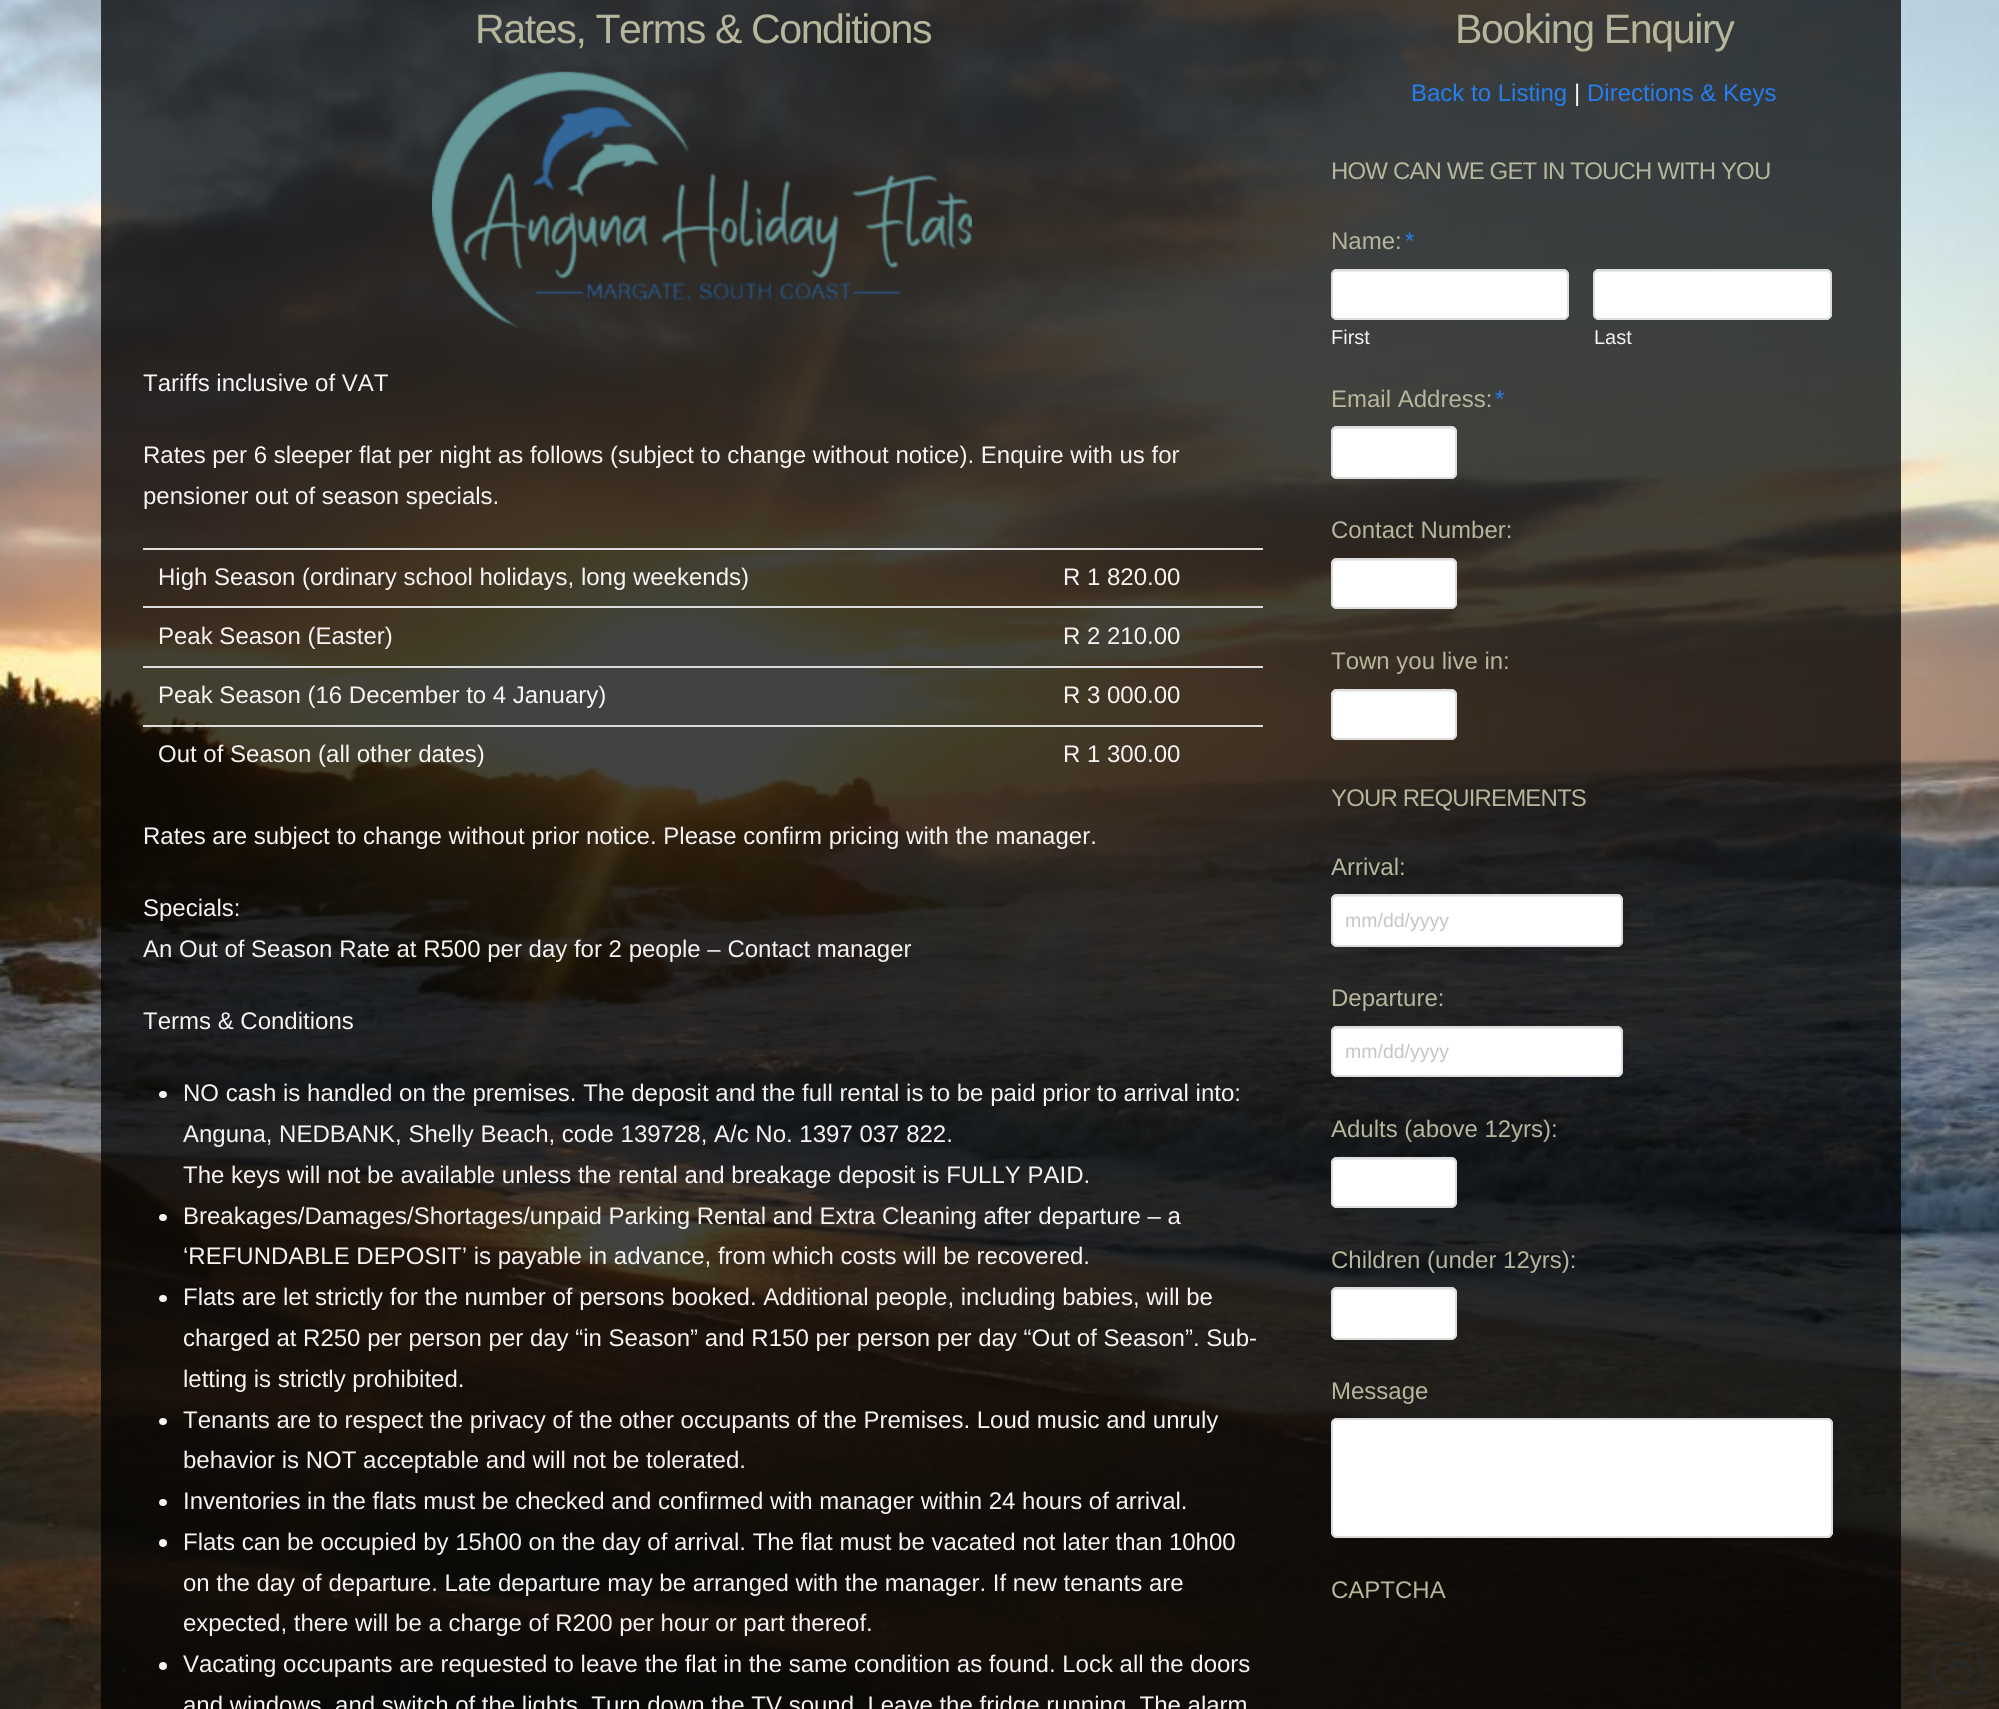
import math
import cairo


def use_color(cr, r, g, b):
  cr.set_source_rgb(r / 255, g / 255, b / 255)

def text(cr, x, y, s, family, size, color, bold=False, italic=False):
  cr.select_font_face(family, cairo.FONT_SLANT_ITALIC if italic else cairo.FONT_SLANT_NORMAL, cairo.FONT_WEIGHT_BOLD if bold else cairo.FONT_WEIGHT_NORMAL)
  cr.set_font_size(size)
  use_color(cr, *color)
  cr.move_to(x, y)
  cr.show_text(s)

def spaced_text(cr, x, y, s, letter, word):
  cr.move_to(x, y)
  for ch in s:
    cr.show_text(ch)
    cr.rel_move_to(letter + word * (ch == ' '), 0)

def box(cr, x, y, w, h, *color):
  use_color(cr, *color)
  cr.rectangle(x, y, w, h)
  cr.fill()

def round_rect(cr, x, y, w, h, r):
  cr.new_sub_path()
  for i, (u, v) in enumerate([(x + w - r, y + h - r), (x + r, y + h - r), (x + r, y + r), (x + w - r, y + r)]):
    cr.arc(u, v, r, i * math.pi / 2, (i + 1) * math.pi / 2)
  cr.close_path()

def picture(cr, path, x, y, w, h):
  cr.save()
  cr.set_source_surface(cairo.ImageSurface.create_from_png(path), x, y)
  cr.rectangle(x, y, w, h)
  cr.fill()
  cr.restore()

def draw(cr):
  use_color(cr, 255, 255, 255)
  cr.paint()
  picture(cr, "img_01.png", 0, 0, 1999, 1709)
  picture(cr, "img_02.png", 432, 71, 540, 257)
  box(cr, 143, 548, 1120, 2, 221, 221, 221)
  box(cr, 143, 606, 1120, 2, 221, 221, 221)
  box(cr, 143, 666, 1120, 2, 221, 221, 221)
  box(cr, 143, 725, 1120, 2, 221, 221, 221)
  use_color(cr, 248, 244, 244)
  round_rect(cr, 159, 1091, 8, 7, 3.5)
  cr.fill()
  round_rect(cr, 159, 1214, 8, 7, 3.5)
  cr.fill()
  round_rect(cr, 159, 1295, 8, 7, 3.5)
  cr.fill()
  round_rect(cr, 159, 1418, 8, 7, 3.5)
  cr.fill()
  round_rect(cr, 159, 1499, 8, 7, 3.5)
  cr.fill()
  cr.arc(163, 1543, 4, 0, 2 * math.pi)
  cr.fill()
  cr.arc(163, 1666, 4, 0, 2 * math.pi)
  cr.fill()
  use_color(cr, 255, 255, 255)
  round_rect(cr, 1331, 269, 238, 51, 6)
  cr.fill()
  use_color(cr, 236, 236, 236)
  cr.new_path()
  cr.move_to(1336, 272)
  cr.line_to(1563, 272)
  cr.curve_to(1565, 272, 1568, 274, 1568, 276)
  cr.line_to(1568, 275)
  cr.curve_to(1568, 272, 1566, 270, 1563, 270)
  cr.line_to(1337, 270)
  cr.curve_to(1334, 270, 1332, 272, 1332, 275)
  cr.line_to(1332, 276)
  cr.curve_to(1332, 274, 1334, 272, 1336, 272)
  cr.close_path()
  cr.fill()
  round_rect(cr, 1332, 270, 236, 49, 5)
  use_color(cr, 221, 221, 221)
  cr.stroke()
  use_color(cr, 255, 255, 255)
  round_rect(cr, 1593, 269, 239, 51, 6)
  cr.fill()
  use_color(cr, 236, 236, 236)
  cr.new_path()
  cr.move_to(1599, 272)
  cr.line_to(1826, 272)
  cr.curve_to(1828, 272, 1830, 274, 1830, 276)
  cr.line_to(1830, 275)
  cr.curve_to(1830, 272, 1828, 270, 1825, 270)
  cr.line_to(1600, 270)
  cr.curve_to(1598, 270, 1596, 272, 1595, 274)
  cr.curve_to(1596, 273, 1598, 272, 1599, 272)
  cr.close_path()
  cr.fill()
  round_rect(cr, 1594, 270, 237, 49, 5)
  use_color(cr, 221, 221, 221)
  cr.stroke()
  use_color(cr, 255, 255, 255)
  round_rect(cr, 1331, 426, 126, 53, 6)
  cr.fill()
  use_color(cr, 236, 236, 236)
  cr.new_path()
  cr.move_to(1336, 429)
  cr.line_to(1450, 429)
  cr.curve_to(1453, 429, 1455, 431, 1455, 434)
  cr.curve_to(1455, 423, 1436, 428, 1431, 428)
  cr.line_to(1356, 428)
  cr.curve_to(1351, 428, 1332, 423, 1332, 434)
  cr.curve_to(1332, 431, 1334, 429, 1336, 429)
  cr.close_path()
  cr.fill()
  round_rect(cr, 1332, 427, 124, 51, 5)
  use_color(cr, 221, 221, 221)
  cr.stroke()
  use_color(cr, 255, 255, 255)
  round_rect(cr, 1331, 558, 126, 51, 6)
  cr.fill()
  use_color(cr, 236, 236, 236)
  cr.new_path()
  cr.move_to(1336, 561)
  cr.line_to(1450, 561)
  cr.curve_to(1453, 561, 1455, 563, 1455, 566)
  cr.curve_to(1455, 555, 1436, 560, 1431, 560)
  cr.line_to(1356, 560)
  cr.curve_to(1351, 560, 1332, 555, 1332, 566)
  cr.curve_to(1332, 563, 1334, 561, 1336, 561)
  cr.close_path()
  cr.fill()
  round_rect(cr, 1332, 559, 124, 49, 5)
  use_color(cr, 221, 221, 221)
  cr.stroke()
  use_color(cr, 255, 255, 255)
  round_rect(cr, 1331, 689, 126, 51, 6)
  cr.fill()
  use_color(cr, 236, 236, 236)
  cr.new_path()
  cr.move_to(1336, 692)
  cr.line_to(1450, 692)
  cr.curve_to(1453, 692, 1455, 694, 1455, 696)
  cr.curve_to(1455, 685, 1436, 690, 1431, 690)
  cr.line_to(1356, 690)
  cr.curve_to(1351, 690, 1332, 685, 1332, 696)
  cr.curve_to(1332, 694, 1334, 692, 1336, 692)
  cr.close_path()
  cr.fill()
  round_rect(cr, 1332, 690, 124, 49, 5)
  use_color(cr, 221, 221, 221)
  cr.stroke()
  use_color(cr, 255, 255, 255)
  round_rect(cr, 1331, 894, 292, 53, 6)
  cr.fill()
  use_color(cr, 236, 236, 236)
  cr.new_path()
  cr.move_to(1336, 897)
  cr.line_to(1617, 897)
  cr.curve_to(1619, 897, 1622, 899, 1622, 902)
  cr.line_to(1622, 901)
  cr.curve_to(1622, 898, 1620, 896, 1617, 896)
  cr.line_to(1337, 896)
  cr.curve_to(1334, 896, 1332, 898, 1332, 901)
  cr.line_to(1332, 902)
  cr.curve_to(1332, 899, 1334, 897, 1336, 897)
  cr.close_path()
  cr.fill()
  round_rect(cr, 1332, 895, 290, 51, 5)
  use_color(cr, 221, 221, 221)
  cr.stroke()
  picture(cr, "img_03.png", 1630, 909, 24, 24)
  use_color(cr, 255, 255, 255)
  round_rect(cr, 1331, 1026, 292, 51, 6)
  cr.fill()
  use_color(cr, 236, 236, 236)
  cr.new_path()
  cr.move_to(1336, 1029)
  cr.line_to(1617, 1029)
  cr.curve_to(1619, 1029, 1622, 1031, 1622, 1034)
  cr.line_to(1622, 1033)
  cr.curve_to(1622, 1030, 1620, 1028, 1617, 1028)
  cr.line_to(1337, 1028)
  cr.curve_to(1334, 1028, 1332, 1030, 1332, 1033)
  cr.line_to(1332, 1034)
  cr.curve_to(1332, 1031, 1334, 1029, 1336, 1029)
  cr.close_path()
  cr.fill()
  round_rect(cr, 1332, 1027, 290, 49, 5)
  use_color(cr, 221, 221, 221)
  cr.stroke()
  picture(cr, "img_04.png", 1630, 1040, 24, 24)
  use_color(cr, 255, 255, 255)
  round_rect(cr, 1331, 1157, 126, 51, 6)
  cr.fill()
  use_color(cr, 236, 236, 236)
  cr.new_path()
  cr.move_to(1336, 1160)
  cr.line_to(1450, 1160)
  cr.curve_to(1453, 1160, 1455, 1162, 1455, 1164)
  cr.curve_to(1455, 1153, 1436, 1158, 1431, 1158)
  cr.line_to(1356, 1158)
  cr.curve_to(1351, 1158, 1332, 1153, 1332, 1164)
  cr.curve_to(1332, 1162, 1334, 1160, 1336, 1160)
  cr.close_path()
  cr.fill()
  round_rect(cr, 1332, 1158, 124, 49, 5)
  use_color(cr, 221, 221, 221)
  cr.stroke()
  use_color(cr, 255, 255, 255)
  round_rect(cr, 1331, 1287, 126, 53, 6)
  cr.fill()
  use_color(cr, 236, 236, 236)
  cr.new_path()
  cr.move_to(1336, 1290)
  cr.line_to(1450, 1290)
  cr.curve_to(1453, 1290, 1455, 1292, 1455, 1294)
  cr.curve_to(1455, 1291, 1453, 1289, 1450, 1289)
  cr.line_to(1337, 1289)
  cr.curve_to(1334, 1289, 1332, 1291, 1332, 1294)
  cr.curve_to(1332, 1292, 1334, 1290, 1336, 1290)
  cr.close_path()
  cr.fill()
  round_rect(cr, 1332, 1288, 124, 51, 5)
  use_color(cr, 221, 221, 221)
  cr.stroke()
  use_color(cr, 255, 255, 255)
  round_rect(cr, 1331, 1418, 502, 120, 6)
  cr.fill()
  use_color(cr, 236, 236, 236)
  cr.new_path()
  cr.move_to(1336, 1420)
  cr.line_to(1827, 1420)
  cr.curve_to(1829, 1420, 1832, 1423, 1832, 1425)
  cr.curve_to(1832, 1422, 1830, 1419, 1827, 1419)
  cr.line_to(1337, 1419)
  cr.curve_to(1334, 1419, 1332, 1422, 1332, 1425)
  cr.curve_to(1332, 1423, 1334, 1420, 1336, 1420)
  cr.close_path()
  cr.fill()
  round_rect(cr, 1332, 1419, 500, 118, 5)
  use_color(cr, 221, 221, 221)
  cr.stroke()
  round_rect(cr, 1933.5, 1644.5, 50, 49, 24.5)
  use_color(cr, 39, 39, 39)
  cr.set_line_width(3)
  cr.stroke()
  picture(cr, "img_05.png", 1945, 1658, 28, 17)
  cr.select_font_face("Liberation Sans")
  cr.set_font_size(41.1)
  use_color(cr, 181, 182, 155)
  spaced_text(cr, 475, 43, "Rates, Terms & Conditions", -1.4, 0)
  text(cr, 143, 391, "Tariffs inclusive of VAT", "Liberation Sans", 24, (248, 244, 244))
  text(cr, 143, 463, "Rates per 6 sleeper flat per night as follows (subject to change without notice). Enquire with us for", "Liberation Sans", 24, (248, 244, 244))
  text(cr, 143, 504, "pensioner out of season specials.", "Liberation Sans", 24, (248, 244, 244))
  text(cr, 158, 585, "High Season (ordinary school holidays, long weekends)", "Liberation Sans", 24, (248, 244, 244))
  text(cr, 1063, 585, "R 1 820.00", "Liberation Sans", 24, (248, 244, 244))
  text(cr, 158, 644, "Peak Season (Easter)", "Liberation Sans", 24, (248, 244, 244))
  text(cr, 1063, 644, "R 2 210.00", "Liberation Sans", 24, (248, 244, 244))
  text(cr, 158, 703, "Peak Season (16 December to 4 January)", "Liberation Sans", 24, (248, 244, 244))
  text(cr, 1063, 703, "R 3 000.00", "Liberation Sans", 24, (248, 244, 244))
  text(cr, 158, 762, "Out of Season (all other dates)", "Liberation Sans", 24, (248, 244, 244))
  text(cr, 1063, 762, "R 1 300.00", "Liberation Sans", 24, (248, 244, 244))
  text(cr, 143, 844, "Rates are subject to change without prior notice. Please confirm pricing with the manager.", "Liberation Sans", 24, (248, 244, 244))
  text(cr, 143, 916, "Specials:", "Liberation Sans", 24, (248, 244, 244))
  text(cr, 143, 957, "An Out of Season Rate at R500 per day for 2 people – Contact manager", "Liberation Sans", 24, (248, 244, 244))
  text(cr, 143, 1029, "Terms & Conditions", "Liberation Sans", 24, (248, 244, 244))
  text(cr, 183, 1101, "NO cash is handled on the premises. The deposit and the full rental is to be paid prior to arrival into:", "Liberation Sans", 24, (248, 244, 244))
  text(cr, 183, 1142, "Anguna, NEDBANK, Shelly Beach, code 139728, A/c No. 1397 037 822.", "Liberation Sans", 24, (248, 244, 244))
  text(cr, 183, 1183, "The keys will not be available unless the rental and breakage deposit is FULLY PAID.", "Liberation Sans", 24, (248, 244, 244))
  text(cr, 183, 1224, "Breakages/Damages/Shortages/unpaid Parking Rental and Extra Cleaning after departure – a", "Liberation Sans", 24, (248, 244, 244))
  text(cr, 183, 1264, "‘REFUNDABLE DEPOSIT’ is payable in advance, from which costs will be recovered.", "Liberation Sans", 24, (248, 244, 244))
  text(cr, 183, 1305, "Flats are let strictly for the number of persons booked. Additional people, including babies, will be", "Liberation Sans", 24, (248, 244, 244))
  text(cr, 183, 1346, "charged at R250 per person per day “in Season” and R150 per person per day “Out of Season”. Sub-", "Liberation Sans", 24, (248, 244, 244))
  text(cr, 183, 1387, "letting is strictly prohibited.", "Liberation Sans", 24, (248, 244, 244))
  text(cr, 183, 1428, "Tenants are to respect the privacy of the other occupants of the Premises. Loud music and unruly", "Liberation Sans", 24, (248, 244, 244))
  text(cr, 183, 1468, "behavior is NOT acceptable and will not be tolerated.", "Liberation Sans", 24, (248, 244, 244))
  text(cr, 183, 1509, "Inventories in the flats must be checked and confirmed with manager within 24 hours of arrival.", "Liberation Sans", 24, (248, 244, 244))
  text(cr, 183, 1550, "Flats can be occupied by 15h00 on the day of arrival. The flat must be vacated not later than 10h00", "Liberation Sans", 24, (248, 244, 244))
  text(cr, 183, 1591, "on the day of departure. Late departure may be arranged with the manager. If new tenants are", "Liberation Sans", 24, (248, 244, 244))
  text(cr, 183, 1631, "expected, there will be a charge of R200 per hour or part thereof.", "Liberation Sans", 24, (248, 244, 244))
  text(cr, 183, 1672, "Vacating occupants are requested to leave the flat in the same condition as found. Lock all the doors", "Liberation Sans", 24, (248, 244, 244))
  text(cr, 183, 1713, "and windows, and switch of the lights. Turn down the TV sound. Leave the fridge running. The alarm", "Liberation Sans", 24, (248, 244, 244))
  cr.set_font_size(41.1)
  use_color(cr, 181, 182, 155)
  spaced_text(cr, 1455, 43, "Booking Enquiry", -1.4, 0)
  text(cr, 1411, 101, "Back to Listing", "Liberation Sans", 24, (37, 126, 240))
  text(cr, 1574, 101, "|", "Liberation Sans", 24, (248, 244, 244))
  text(cr, 1587, 101, "Directions & Keys", "Liberation Sans", 24, (37, 126, 240))
  use_color(cr, 181, 182, 155)
  spaced_text(cr, 1331, 179, "HOW CAN WE GET IN TOUCH WITH YOU", -0.85, 0)
  text(cr, 1331, 249, "Name:", "Liberation Sans", 24, (181, 182, 155))
  text(cr, 1405, 249, "*", "Liberation Sans", 24, (37, 126, 240))
  text(cr, 1331, 344, "First", "Liberation Sans", 20, (248, 244, 244))
  text(cr, 1594, 344, "Last", "Liberation Sans", 20, (248, 244, 244))
  text(cr, 1331, 407, "Email Address:", "Liberation Sans", 24, (181, 182, 155))
  text(cr, 1495, 407, "*", "Liberation Sans", 24, (37, 126, 240))
  text(cr, 1331, 538, "Contact Number:", "Liberation Sans", 24, (181, 182, 155))
  text(cr, 1331, 669, "Town you live in:", "Liberation Sans", 24, (181, 182, 155))
  spaced_text(cr, 1331, 806, "YOUR REQUIREMENTS", -0.85, 0)
  text(cr, 1331, 875, "Arrival:", "Liberation Sans", 24, (181, 182, 155))
  text(cr, 1345, 927, "mm/dd/yyyy", "Liberation Sans", 19.5, (197, 197, 197))
  text(cr, 1331, 1006, "Departure:", "Liberation Sans", 24, (181, 182, 155))
  text(cr, 1345, 1058, "mm/dd/yyyy", "Liberation Sans", 19.5, (197, 197, 197))
  text(cr, 1331, 1137, "Adults (above 12yrs):", "Liberation Sans", 24, (181, 182, 155))
  text(cr, 1331, 1268, "Children (under 12yrs):", "Liberation Sans", 24, (181, 182, 155))
  text(cr, 1331, 1399, "Message", "Liberation Sans", 24, (181, 182, 155))
  text(cr, 1331, 1598, "CAPTCHA", "Liberation Sans", 24, (181, 182, 155))


surface = cairo.ImageSurface(cairo.FORMAT_RGB24, 1999, 1709)
cr = cairo.Context(surface)
options = cairo.FontOptions()
options.set_hint_metrics(cairo.HINT_METRICS_OFF)
options.set_hint_style(cairo.HINT_STYLE_NONE)
cr.set_font_options(options)
cr.set_miter_limit(4)
draw(cr)
surface.write_to_png("out.png")
